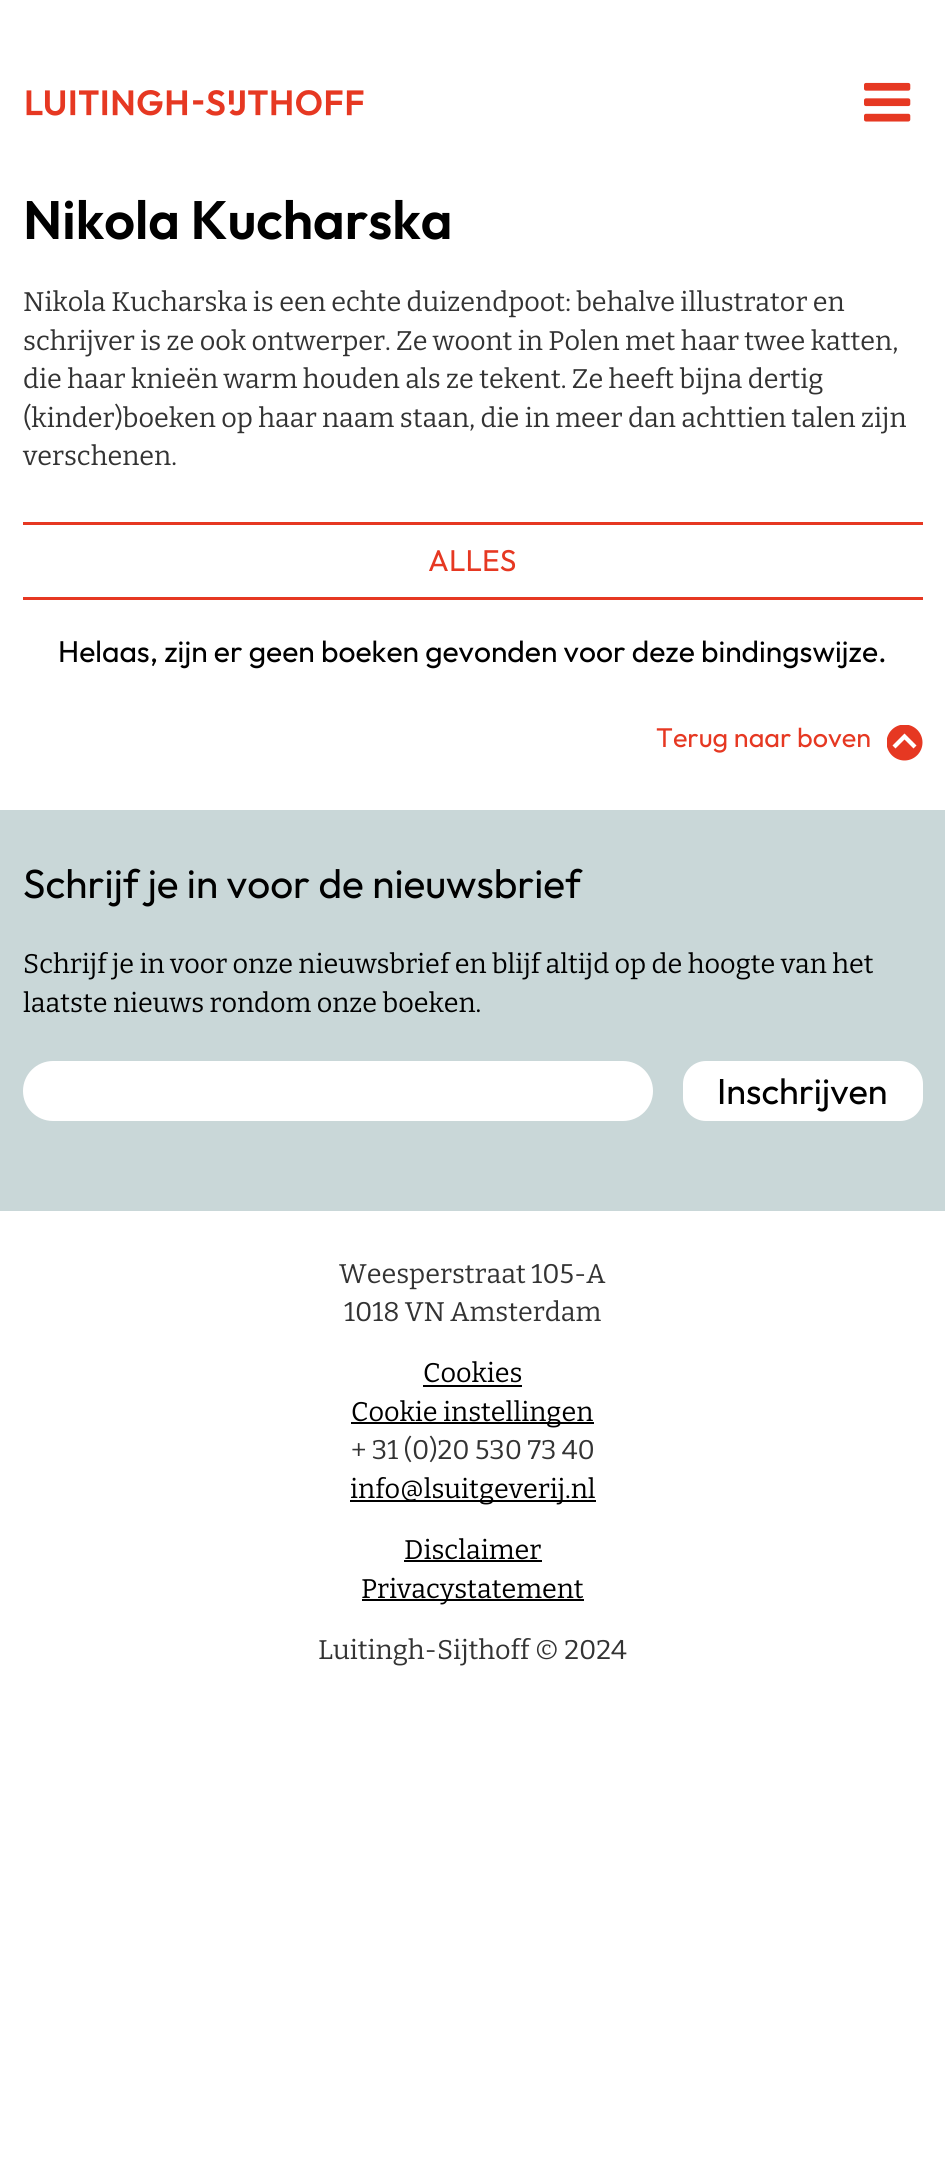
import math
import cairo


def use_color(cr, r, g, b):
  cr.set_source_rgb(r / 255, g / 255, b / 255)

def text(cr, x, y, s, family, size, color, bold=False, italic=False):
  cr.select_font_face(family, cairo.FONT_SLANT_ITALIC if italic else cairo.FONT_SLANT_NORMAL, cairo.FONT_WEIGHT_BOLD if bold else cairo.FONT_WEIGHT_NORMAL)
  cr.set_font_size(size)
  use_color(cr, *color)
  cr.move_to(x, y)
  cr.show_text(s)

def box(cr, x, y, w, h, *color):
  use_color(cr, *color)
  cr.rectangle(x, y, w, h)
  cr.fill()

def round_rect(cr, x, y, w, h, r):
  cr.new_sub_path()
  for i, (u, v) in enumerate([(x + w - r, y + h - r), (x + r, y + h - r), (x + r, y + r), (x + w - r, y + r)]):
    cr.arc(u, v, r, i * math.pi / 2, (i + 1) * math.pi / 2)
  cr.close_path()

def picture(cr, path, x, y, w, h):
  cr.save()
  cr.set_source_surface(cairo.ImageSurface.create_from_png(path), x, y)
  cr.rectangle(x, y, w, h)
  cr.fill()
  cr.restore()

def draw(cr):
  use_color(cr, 255, 255, 255)
  cr.paint()
  picture(cr, "img_01.png", 26, 90, 338, 26)
  picture(cr, "img_02.png", 864, 82, 47, 40)
  box(cr, 23, 522, 900, 3, 230, 56, 34)
  box(cr, 23, 597, 900, 3, 230, 56, 34)
  picture(cr, "img_03.png", 887, 725, 36, 36)
  box(cr, 0, 810, 945, 401, 201, 215, 216)
  use_color(cr, 255, 255, 255)
  round_rect(cr, 23, 1061, 630, 60, 30)
  cr.fill()
  round_rect(cr, 683, 1061, 240, 60, 23)
  cr.fill()
  box(cr, 423, 1385, 99, 2, 0, 0, 0)
  box(cr, 351, 1422, 243, 2, 0, 0, 0)
  box(cr, 350, 1500, 246, 2, 0, 0, 0)
  box(cr, 404, 1560, 138, 2, 0, 0, 0)
  box(cr, 362, 1599, 222, 2, 0, 0, 0)
  text(cr, 23, 239, "Nikola Kucharska", "Outfit SemiBold", 54, (0, 0, 0))
  text(cr, 23, 311, "Nikola Kucharska is een echte duizendpoot: behalve illustrator en", "Bitter Thin", 27, (51, 51, 51))
  text(cr, 23, 350, "schrijver is ze ook ontwerper. Ze woont in Polen met haar twee katten,", "Bitter Thin", 27, (51, 51, 51))
  text(cr, 23, 388, "die haar knieën warm houden als ze tekent. Ze heeft bijna dertig", "Bitter Thin", 27, (51, 51, 51))
  text(cr, 23, 427, "(kinder)boeken op haar naam staan, die in meer dan achttien talen zijn", "Bitter Thin", 27, (51, 51, 51))
  text(cr, 23, 465, "verschenen.", "Bitter Thin", 27, (51, 51, 51))
  text(cr, 428, 571, "ALLES", "Outfit", 30, (230, 56, 34))
  text(cr, 58, 662, "Helaas, zijn er geen boeken gevonden voor deze bindingswijze.", "Outfit", 30, (0, 0, 0))
  text(cr, 656, 747, "Terug naar boven", "Outfit", 27, (230, 56, 34))
  text(cr, 23, 898, "Schrijf je in voor de nieuwsbrief", "Outfit", 40.5, (0, 0, 0))
  text(cr, 23, 973, "Schrijf je in voor onze nieuwsbrief en blijf altijd op de hoogte van het", "Bitter Thin", 27, (0, 0, 0))
  text(cr, 23, 1012, "laatste nieuws rondom onze boeken.", "Bitter Thin", 27, (0, 0, 0))
  text(cr, 717, 1104, "Inschrijven", "Outfit", 36, (0, 0, 0))
  text(cr, 339, 1283, "Weesperstraat 105-A", "Bitter Thin", 27, (51, 51, 51))
  text(cr, 344, 1321, "1018 VN Amsterdam", "Bitter Thin", 27, (51, 51, 51))
  text(cr, 423, 1382, "Cookies", "Bitter Thin", 27, (0, 0, 0))
  text(cr, 351, 1421, "Cookie instellingen", "Bitter Thin", 27, (0, 0, 0))
  text(cr, 351, 1459, "+ 31 (0)20 530 73 40", "Bitter Thin", 27, (51, 51, 51))
  text(cr, 350, 1498, "info@lsuitgeverij.nl", "Bitter Thin", 27, (0, 0, 0))
  text(cr, 404, 1559, "Disclaimer", "Bitter Thin", 27, (0, 0, 0))
  text(cr, 361, 1598, "Privacystatement", "Bitter Thin", 27, (0, 0, 0))
  text(cr, 318, 1659, "Luitingh-Sijthoff © 2024", "Bitter Thin", 27, (51, 51, 51))


surface = cairo.ImageSurface(cairo.FORMAT_RGB24, 945, 2173)
cr = cairo.Context(surface)
options = cairo.FontOptions()
options.set_hint_metrics(cairo.HINT_METRICS_OFF)
options.set_hint_style(cairo.HINT_STYLE_NONE)
cr.set_font_options(options)
cr.set_miter_limit(4)
draw(cr)
surface.write_to_png("out.png")
